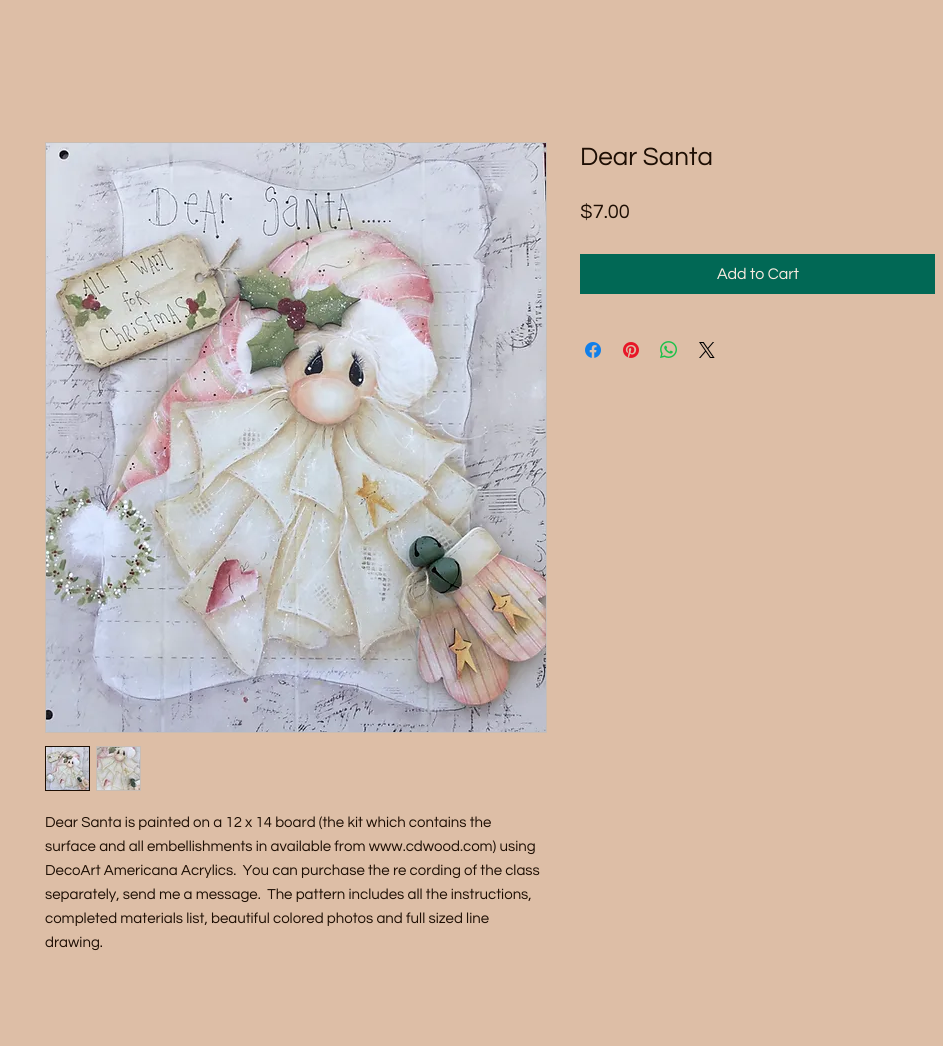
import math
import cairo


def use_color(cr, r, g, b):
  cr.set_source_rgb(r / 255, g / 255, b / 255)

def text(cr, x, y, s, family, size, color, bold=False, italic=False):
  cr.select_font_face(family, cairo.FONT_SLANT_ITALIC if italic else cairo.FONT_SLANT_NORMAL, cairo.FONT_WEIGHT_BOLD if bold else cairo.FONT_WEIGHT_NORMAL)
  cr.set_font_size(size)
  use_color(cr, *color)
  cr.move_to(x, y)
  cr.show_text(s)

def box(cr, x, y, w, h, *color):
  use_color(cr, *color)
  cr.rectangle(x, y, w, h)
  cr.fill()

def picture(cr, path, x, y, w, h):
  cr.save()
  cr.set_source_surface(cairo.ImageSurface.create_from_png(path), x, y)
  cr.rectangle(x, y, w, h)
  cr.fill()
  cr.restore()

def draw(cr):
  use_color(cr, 221, 190, 166)
  cr.paint()
  box(cr, 580, 254, 355, 40, 1, 104, 85)
  picture(cr, "img_01.png", 585, 342, 16, 16)
  picture(cr, "img_02.png", 623, 342, 16, 16)
  picture(cr, "img_03.png", 660, 341, 17, 17)
  picture(cr, "img_04.png", 699, 342, 16, 16)
  cr.rectangle(45.5, 142.5, 501, 590)
  use_color(cr, 200, 189, 180)
  cr.set_line_width(1)
  cr.stroke()
  picture(cr, "img_05.png", 46, 143, 500, 589)
  cr.rectangle(45.5, 746.5, 44, 44)
  use_color(cr, 29, 14, 3)
  cr.stroke()
  picture(cr, "img_06.png", 46, 747, 43, 43)
  box(cr, 96, 746, 45, 45, 200, 189, 180)
  picture(cr, "img_07.png", 97, 747, 43, 43)
  text(cr, 580, 165, "Dear Santa", "Questrial", 26, (29, 14, 3))
  text(cr, 580, 218, "$7.00", "Questrial", 20, (29, 14, 3))
  text(cr, 717, 279, "Add to Cart", "Questrial", 16, (250, 236, 225))
  text(cr, 45, 827, "Dear Santa is painted on a 12 x 14 board (the kit which contains the", "Questrial", 15, (29, 14, 3))
  text(cr, 45, 851, "surface and all embellishments in available from www.cdwood.com) using", "Questrial", 15, (29, 14, 3))
  text(cr, 45, 875, "DecoArt Americana Acrylics.  You can purchase the re cording of the class", "Questrial", 15, (29, 14, 3))
  text(cr, 45, 899, "separately, send me a message.  The pattern includes all the instructions,", "Questrial", 15, (29, 14, 3))
  text(cr, 45, 923, "completed materials list, beautiful colored photos and full sized line", "Questrial", 15, (29, 14, 3))
  text(cr, 45, 947, "drawing.", "Questrial", 15, (29, 14, 3))


surface = cairo.ImageSurface(cairo.FORMAT_RGB24, 943, 1046)
cr = cairo.Context(surface)
options = cairo.FontOptions()
options.set_hint_metrics(cairo.HINT_METRICS_OFF)
options.set_hint_style(cairo.HINT_STYLE_NONE)
cr.set_font_options(options)
cr.set_miter_limit(4)
draw(cr)
surface.write_to_png("out.png")
